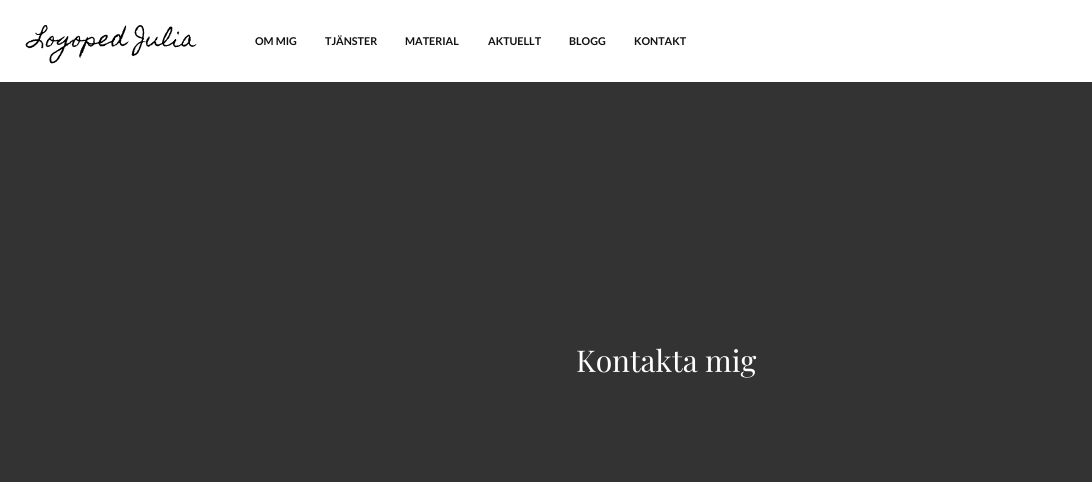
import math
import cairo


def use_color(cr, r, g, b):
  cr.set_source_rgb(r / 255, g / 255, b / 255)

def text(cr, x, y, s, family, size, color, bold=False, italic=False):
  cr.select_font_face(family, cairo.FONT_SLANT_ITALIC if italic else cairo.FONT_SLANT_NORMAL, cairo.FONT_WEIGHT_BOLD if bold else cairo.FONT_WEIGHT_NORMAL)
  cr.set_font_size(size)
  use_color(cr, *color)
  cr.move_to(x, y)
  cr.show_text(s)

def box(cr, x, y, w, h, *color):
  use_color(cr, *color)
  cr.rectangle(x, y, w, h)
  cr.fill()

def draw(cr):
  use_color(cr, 255, 255, 255)
  cr.paint()
  box(cr, 0, 82, 1092, 400, 51, 51, 51)
  text(cr, 30, 46, "Logoped Julia", "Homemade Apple", 22, (0, 0, 0))
  text(cr, 255, 45, "OM MIG", "Lato", 10.75, (17, 17, 17), bold=True)
  text(cr, 325, 45, "TJÄNSTER", "Lato", 10.75, (17, 17, 17), bold=True)
  text(cr, 405, 45, "MATERIAL", "Lato", 10.75, (17, 17, 17), bold=True)
  text(cr, 488, 45, "AKTUELLT", "Lato", 10.75, (17, 17, 17), bold=True)
  text(cr, 569, 45, "BLOGG", "Lato", 10.75, (17, 17, 17), bold=True)
  text(cr, 634, 45, "KONTAKT", "Lato", 10.75, (17, 17, 17), bold=True)
  text(cr, 576, 372, "Kontakta mig", "Playfair Display", 30, (255, 255, 255))


surface = cairo.ImageSurface(cairo.FORMAT_RGB24, 1092, 482)
cr = cairo.Context(surface)
options = cairo.FontOptions()
options.set_hint_metrics(cairo.HINT_METRICS_OFF)
options.set_hint_style(cairo.HINT_STYLE_NONE)
cr.set_font_options(options)
cr.set_miter_limit(4)
draw(cr)
surface.write_to_png("out.png")
